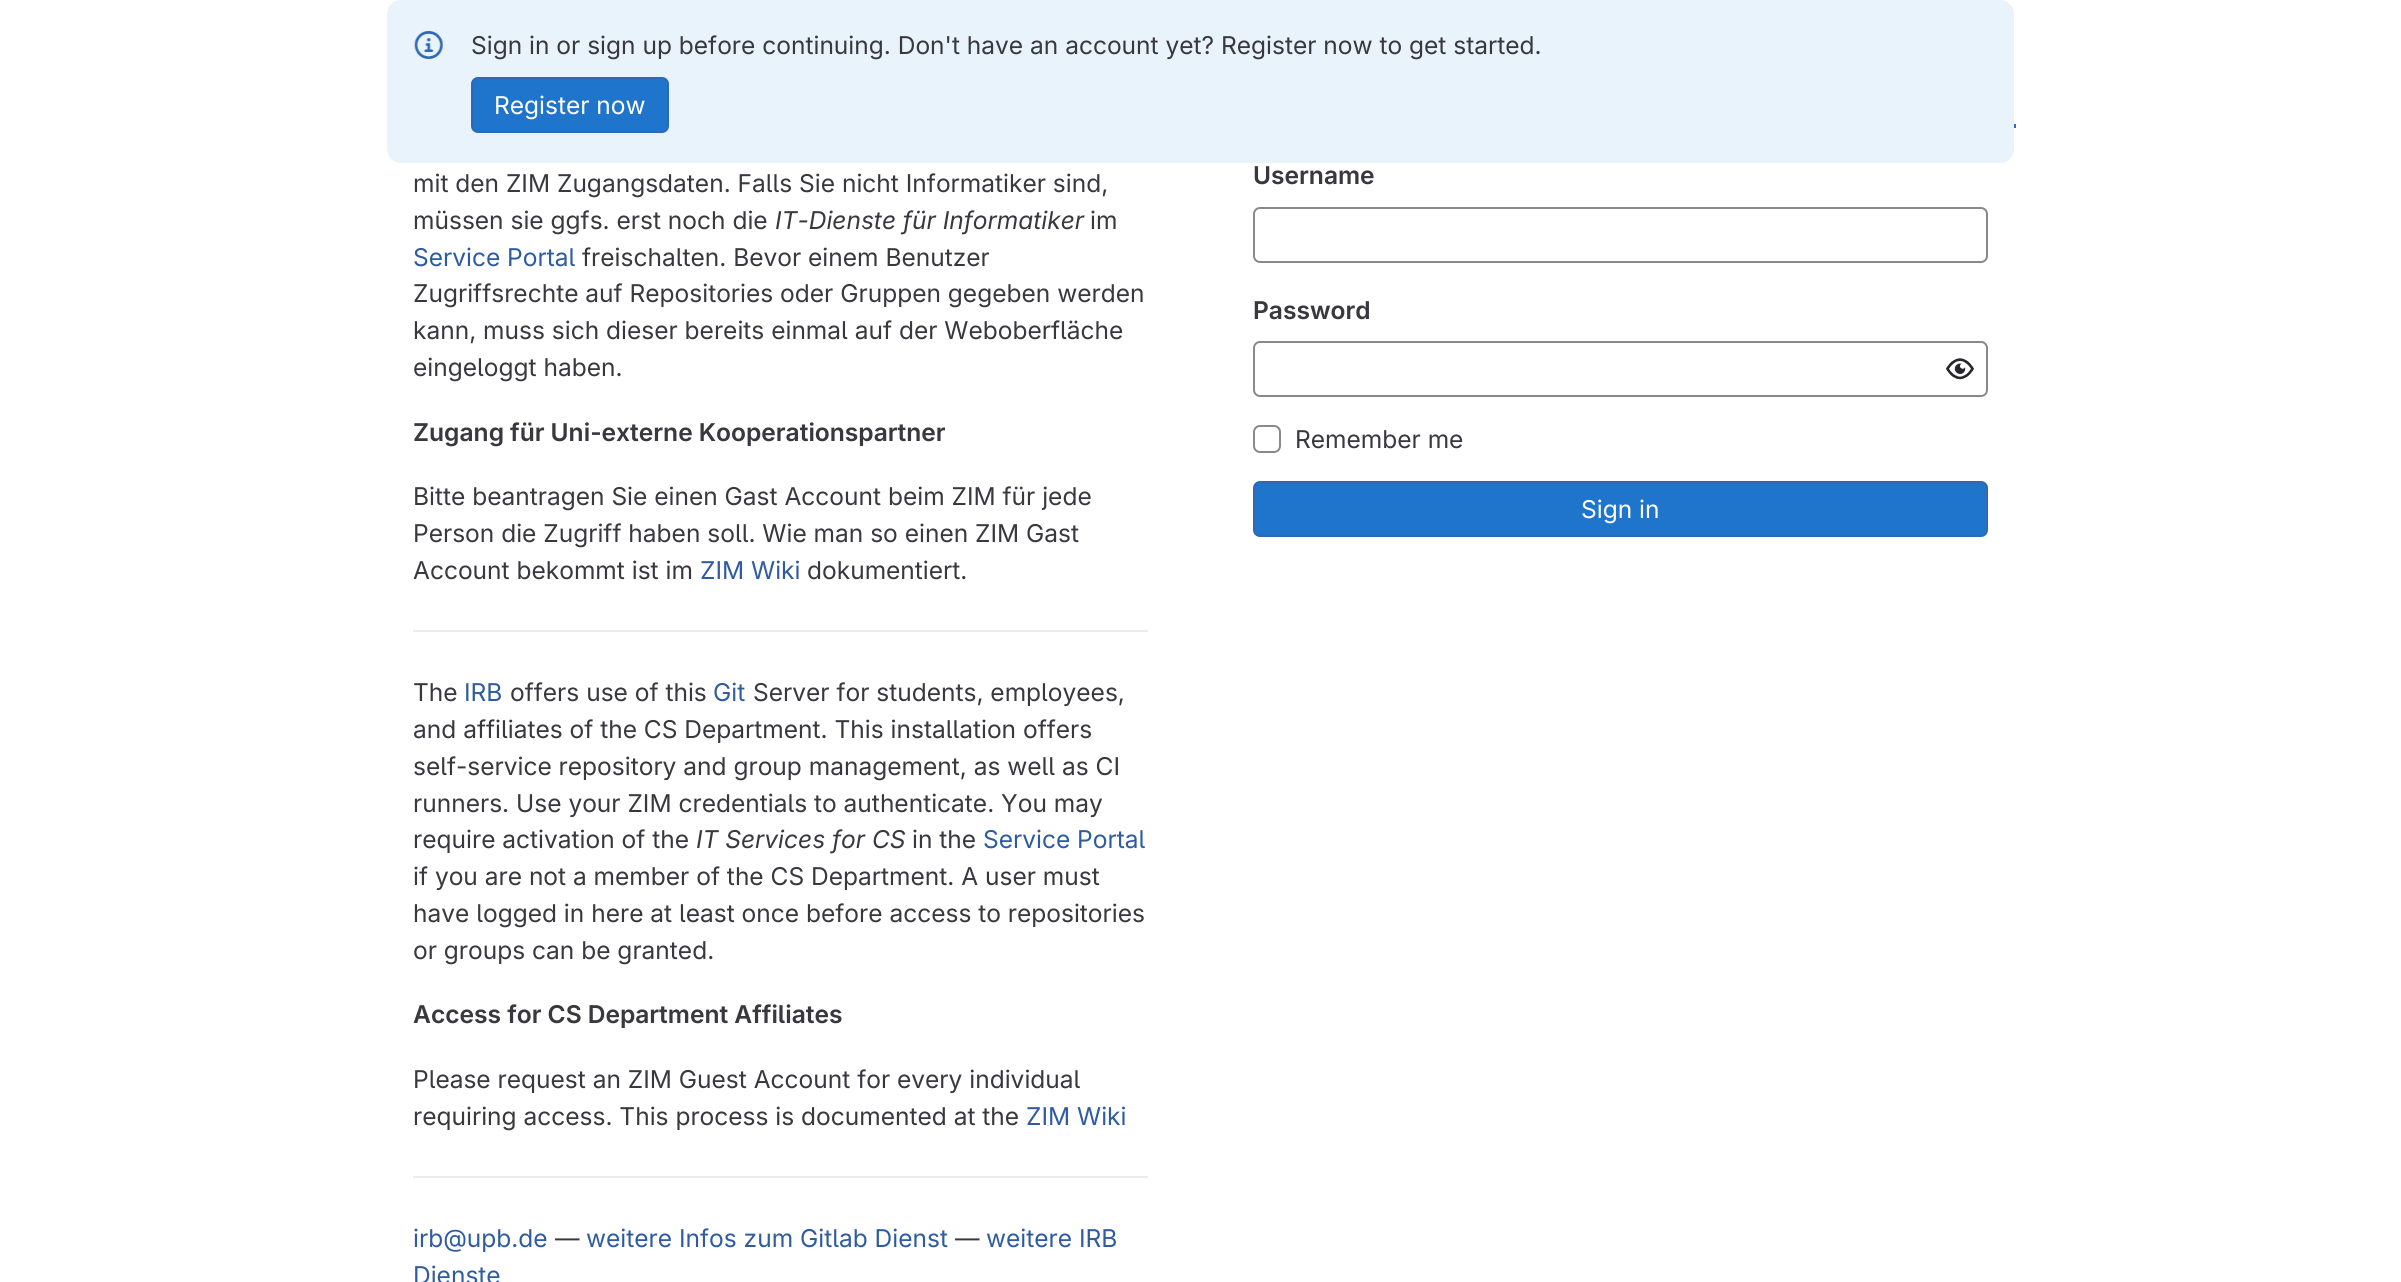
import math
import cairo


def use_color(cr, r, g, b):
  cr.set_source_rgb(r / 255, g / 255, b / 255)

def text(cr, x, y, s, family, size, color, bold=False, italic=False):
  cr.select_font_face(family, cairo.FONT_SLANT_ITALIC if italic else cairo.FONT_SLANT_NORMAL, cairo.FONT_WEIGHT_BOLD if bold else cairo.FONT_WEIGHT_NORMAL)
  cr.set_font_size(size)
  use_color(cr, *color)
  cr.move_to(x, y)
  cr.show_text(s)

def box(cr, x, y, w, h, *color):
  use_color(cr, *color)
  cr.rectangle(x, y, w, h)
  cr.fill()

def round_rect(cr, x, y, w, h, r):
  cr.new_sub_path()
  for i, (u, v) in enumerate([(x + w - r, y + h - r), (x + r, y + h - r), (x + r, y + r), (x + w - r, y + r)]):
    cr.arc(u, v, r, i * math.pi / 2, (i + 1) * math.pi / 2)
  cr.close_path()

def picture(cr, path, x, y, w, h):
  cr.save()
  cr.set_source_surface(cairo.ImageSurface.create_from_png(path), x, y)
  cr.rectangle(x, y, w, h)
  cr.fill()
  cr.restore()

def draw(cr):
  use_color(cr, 255, 255, 255)
  cr.paint()
  use_color(cr, 233, 243, 252)
  round_rect(cr, 387, 0, 1627, 163, 14)
  cr.fill()
  picture(cr, "img_01.png", 414, 31, 29, 28)
  use_color(cr, 31, 117, 203)
  round_rect(cr, 472, 78, 196, 54, 6)
  cr.fill_preserve()
  use_color(cr, 47, 104, 180)
  cr.stroke()
  box(cr, 413, 630, 735, 2, 236, 236, 239)
  box(cr, 413, 1176, 735, 2, 236, 236, 239)
  box(cr, 2014, 124, 2, 4, 31, 117, 203)
  round_rect(cr, 1254, 208, 733, 54, 6)
  use_color(cr, 137, 136, 141)
  cr.stroke()
  round_rect(cr, 1254, 342, 733, 54, 6)
  cr.stroke()
  picture(cr, "img_02.png", 1946, 358, 28, 22)
  round_rect(cr, 1254, 426, 26, 26, 6)
  cr.stroke()
  use_color(cr, 31, 117, 203)
  round_rect(cr, 1254, 482, 733, 54, 6)
  cr.fill_preserve()
  use_color(cr, 47, 104, 180)
  cr.stroke()
  text(cr, 471, 54, "Sign in or sign up before continuing. Don't have an account yet? Register now to get started.", "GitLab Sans", 24.5, (58, 56, 63))
  text(cr, 494, 114, "Register now", "GitLab Sans", 24.5, (255, 255, 255))
  text(cr, 413, 192, "mit den ZIM Zugangsdaten. Falls Sie nicht Informatiker sind,", "GitLab Sans", 24.5, (58, 56, 63))
  text(cr, 413, 229, "müssen sie ggfs. erst noch die", "GitLab Sans", 24.5, (58, 56, 63))
  text(cr, 775, 229, "IT-Dienste für Informatiker", "GitLab Sans", 24.5, (58, 56, 63), italic=True)
  text(cr, 1090, 229, "im", "GitLab Sans", 24.5, (58, 56, 63))
  text(cr, 413, 266, "Service Portal", "GitLab Sans", 24.5, (47, 92, 160))
  text(cr, 582, 266, "freischalten. Bevor einem Benutzer", "GitLab Sans", 24.5, (58, 56, 63))
  text(cr, 413, 302, "Zugriffsrechte auf Repositories oder Gruppen gegeben werden", "GitLab Sans", 24.5, (58, 56, 63))
  text(cr, 413, 339, "kann, muss sich dieser bereits einmal auf der Weboberfläche", "GitLab Sans", 24.5, (58, 56, 63))
  text(cr, 413, 376, "eingeloggt haben.", "GitLab Sans", 24.5, (58, 56, 63))
  text(cr, 413, 441, "Zugang für Uni-externe Kooperationspartner", "GitLab Sans SemiBold", 24.5, (58, 56, 63))
  text(cr, 413, 505, "Bitte beantragen Sie einen Gast Account beim ZIM für jede", "GitLab Sans", 24.5, (58, 56, 63))
  text(cr, 413, 542, "Person die Zugriff haben soll. Wie man so einen ZIM Gast", "GitLab Sans", 24.5, (58, 56, 63))
  text(cr, 413, 579, "Account bekommt ist im", "GitLab Sans", 24.5, (58, 56, 63))
  text(cr, 700, 579, "ZIM Wiki", "GitLab Sans", 24.5, (47, 92, 160))
  text(cr, 807, 579, "dokumentiert.", "GitLab Sans", 24.5, (58, 56, 63))
  text(cr, 413, 701, "The", "GitLab Sans", 24.5, (58, 56, 63))
  text(cr, 464, 701, "IRB", "GitLab Sans", 24.5, (47, 92, 160))
  text(cr, 510, 701, "offers use of this", "GitLab Sans", 24.5, (58, 56, 63))
  text(cr, 713, 701, "Git", "GitLab Sans", 24.5, (47, 92, 160))
  text(cr, 753, 701, "Server for students, employees,", "GitLab Sans", 24.5, (58, 56, 63))
  text(cr, 413, 738, "and affiliates of the CS Department. This installation offers", "GitLab Sans", 24.5, (58, 56, 63))
  text(cr, 413, 775, "self-service repository and group management, as well as CI", "GitLab Sans", 24.5, (58, 56, 63))
  text(cr, 413, 812, "runners. Use your ZIM credentials to authenticate. You may", "GitLab Sans", 24.5, (58, 56, 63))
  text(cr, 413, 848, "require activation of the", "GitLab Sans", 24.5, (58, 56, 63))
  text(cr, 696, 848, "IT Services for CS", "GitLab Sans", 24.5, (58, 56, 63), italic=True)
  text(cr, 912, 848, "in the", "GitLab Sans", 24.5, (58, 56, 63))
  text(cr, 983, 848, "Service Portal", "GitLab Sans", 24.5, (47, 92, 160))
  text(cr, 413, 885, "if you are not a member of the CS Department. A user must", "GitLab Sans", 24.5, (58, 56, 63))
  text(cr, 413, 922, "have logged in here at least once before access to repositories", "GitLab Sans", 24.5, (58, 56, 63))
  text(cr, 413, 959, "or groups can be granted.", "GitLab Sans", 24.5, (58, 56, 63))
  text(cr, 413, 1023, "Access for CS Department Affiliates", "GitLab Sans SemiBold", 24.5, (58, 56, 63))
  text(cr, 413, 1088, "Please request an ZIM Guest Account for every individual", "GitLab Sans", 24.5, (58, 56, 63))
  text(cr, 413, 1125, "requiring access. This process is documented at the", "GitLab Sans", 24.5, (58, 56, 63))
  text(cr, 1026, 1125, "ZIM Wiki", "GitLab Sans", 24.5, (47, 92, 160))
  text(cr, 413, 1247, "irb@upb.de", "GitLab Sans", 24.5, (47, 92, 160))
  text(cr, 555, 1247, "—", "GitLab Sans", 24.5, (58, 56, 63))
  text(cr, 586, 1247, "weitere Infos zum Gitlab Dienst", "GitLab Sans", 24.5, (47, 92, 160))
  text(cr, 955, 1247, "—", "GitLab Sans", 24.5, (58, 56, 63))
  text(cr, 986, 1247, "weitere IRB", "GitLab Sans", 24.5, (47, 92, 160))
  text(cr, 413, 1284, "Dienste", "GitLab Sans", 24.5, (47, 92, 160))
  text(cr, 1253, 184, "Username", "GitLab Sans SemiBold", 24.5, (58, 56, 63))
  text(cr, 1253, 319, "Password", "GitLab Sans SemiBold", 24.5, (58, 56, 63))
  text(cr, 1295, 448, "Remember me", "GitLab Sans", 24.5, (58, 56, 63))
  text(cr, 1581, 518, "Sign in", "GitLab Sans", 24.5, (255, 255, 255))


surface = cairo.ImageSurface(cairo.FORMAT_RGB24, 2401, 1282)
cr = cairo.Context(surface)
options = cairo.FontOptions()
options.set_hint_metrics(cairo.HINT_METRICS_OFF)
options.set_hint_style(cairo.HINT_STYLE_NONE)
cr.set_font_options(options)
cr.set_miter_limit(4)
draw(cr)
surface.write_to_png("out.png")
